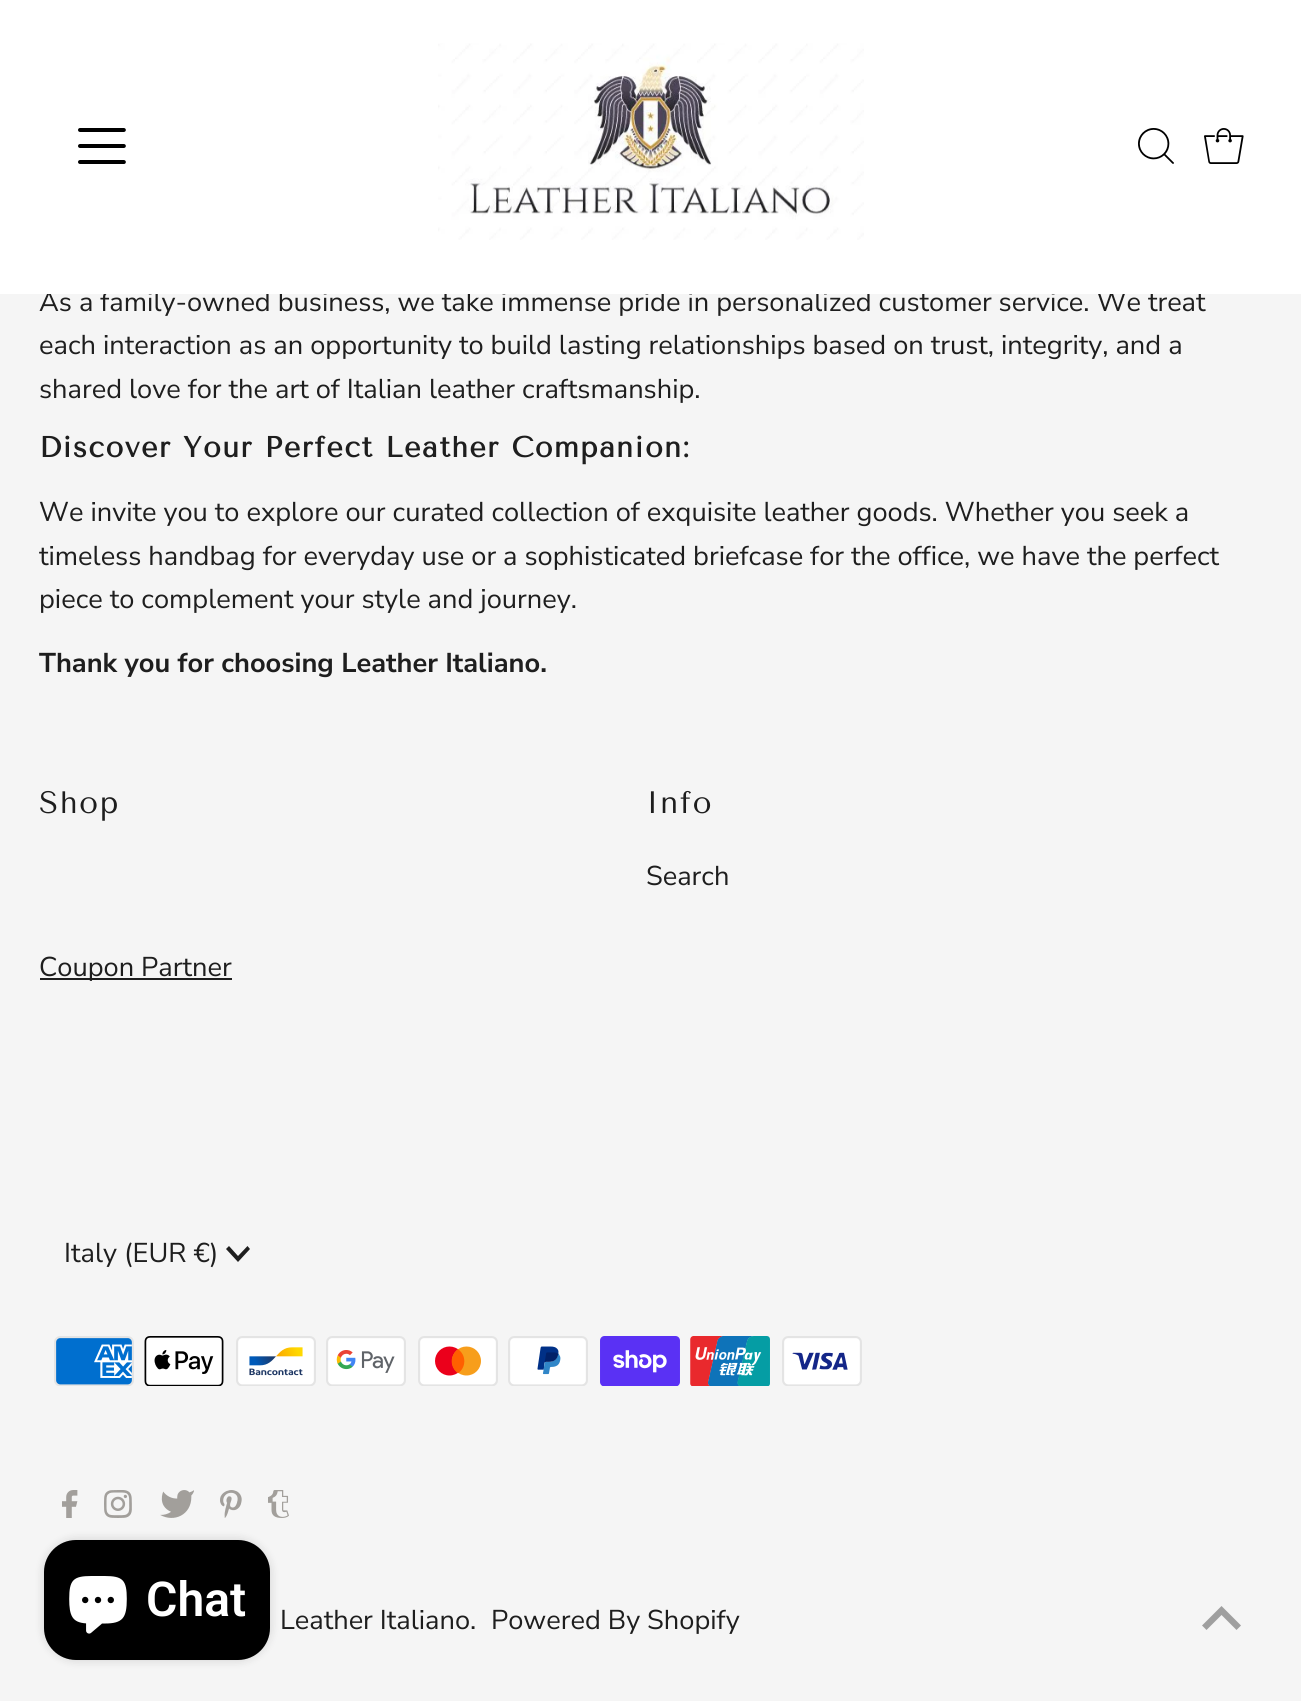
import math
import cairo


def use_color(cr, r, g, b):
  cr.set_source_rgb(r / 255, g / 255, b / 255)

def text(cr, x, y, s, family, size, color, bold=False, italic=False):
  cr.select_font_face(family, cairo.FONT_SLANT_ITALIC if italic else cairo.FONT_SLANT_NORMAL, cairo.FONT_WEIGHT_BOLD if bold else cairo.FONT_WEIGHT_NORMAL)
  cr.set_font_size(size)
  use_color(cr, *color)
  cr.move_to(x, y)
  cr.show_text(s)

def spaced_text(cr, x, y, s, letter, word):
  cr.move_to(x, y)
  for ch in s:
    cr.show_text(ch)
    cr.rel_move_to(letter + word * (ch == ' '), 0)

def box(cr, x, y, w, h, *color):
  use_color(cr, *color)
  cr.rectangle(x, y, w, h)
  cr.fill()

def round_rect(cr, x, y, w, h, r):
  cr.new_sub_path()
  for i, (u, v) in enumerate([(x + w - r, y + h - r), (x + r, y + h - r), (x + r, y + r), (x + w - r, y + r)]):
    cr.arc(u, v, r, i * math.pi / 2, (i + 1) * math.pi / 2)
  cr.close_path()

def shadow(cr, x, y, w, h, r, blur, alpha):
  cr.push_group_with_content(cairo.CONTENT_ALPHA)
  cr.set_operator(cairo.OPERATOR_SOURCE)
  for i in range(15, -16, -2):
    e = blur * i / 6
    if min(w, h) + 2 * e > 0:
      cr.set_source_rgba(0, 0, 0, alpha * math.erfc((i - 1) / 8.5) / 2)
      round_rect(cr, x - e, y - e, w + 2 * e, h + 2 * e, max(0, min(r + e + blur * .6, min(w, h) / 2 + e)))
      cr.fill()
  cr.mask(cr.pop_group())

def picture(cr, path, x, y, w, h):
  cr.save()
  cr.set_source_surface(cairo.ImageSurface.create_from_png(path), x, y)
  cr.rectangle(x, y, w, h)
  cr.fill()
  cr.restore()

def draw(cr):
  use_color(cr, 245, 245, 245)
  cr.paint()
  box(cr, 40, 978, 192, 2, 30, 30, 30)
  cr.new_path()
  cr.move_to(247.5, 1246)
  cr.line_to(238, 1256)
  cr.line_to(229, 1246)
  cr.line_to(226, 1249)
  cr.line_to(238, 1262)
  cr.line_to(250, 1249)
  cr.close_path()
  cr.fill()
  picture(cr, "img_05.png", 54, 1336, 80, 50)
  picture(cr, "img_06.png", 144, 1336, 80, 50)
  picture(cr, "img_07.png", 236, 1336, 80, 50)
  picture(cr, "img_08.png", 326, 1336, 80, 50)
  picture(cr, "img_09.png", 418, 1336, 80, 50)
  picture(cr, "img_10.png", 508, 1336, 80, 50)
  picture(cr, "img_11.png", 600, 1336, 80, 50)
  picture(cr, "img_12.png", 690, 1336, 80, 50)
  picture(cr, "img_13.png", 782, 1336, 80, 50)
  picture(cr, "img_14.png", 62, 1490, 16, 28)
  picture(cr, "img_15.png", 104, 1490, 28, 28)
  picture(cr, "img_16.png", 160, 1490, 34, 28)
  picture(cr, "img_17.png", 220, 1490, 22, 28)
  picture(cr, "img_18.png", 268, 1490, 21, 28)
  use_color(cr, 159, 159, 159)
  cr.new_path()
  cr.move_to(1221.5, 1606)
  cr.line_to(1202, 1625.5)
  cr.line_to(1206.5, 1630)
  cr.line_to(1221.5, 1615)
  cr.line_to(1236.5, 1630)
  cr.line_to(1241, 1625.5)
  cr.close_path()
  cr.fill()
  use_color(cr, 0, 0, 0)
  shadow(cr, 44, 1540, 226, 120, 32, 5, 0.15)
  use_color(cr, 0, 0, 0)
  round_rect(cr, 44, 1540, 226, 120, 32)
  cr.fill()
  picture(cr, "img_19.png", 69, 1576, 58, 58)
  text(cr, 39, 311, "As a family-owned business, we take immense pride in personalized customer service. We treat", "Nunito Sans", 27.2, (30, 30, 30))
  box(cr, 0, 0, 1301, 294, 255, 255, 255)
  picture(cr, "img_04.png", 1204, 128, 40, 36)
  picture(cr, "img_02.png", 438, 43, 426, 197)
  picture(cr, "img_03.png", 1138, 128, 36, 36)
  picture(cr, "img_01.png", 78, 128, 48, 36)
  text(cr, 39, 354, "each interaction as an opportunity to build lasting relationships based on trust, integrity, and a", "Nunito Sans", 27.2, (30, 30, 30))
  text(cr, 39, 398, "shared love for the art of Italian leather craftsmanship.", "Nunito Sans", 27.2, (30, 30, 30))
  cr.select_font_face("Tenor Sans", cairo.FONT_SLANT_NORMAL, cairo.FONT_WEIGHT_BOLD)
  cr.set_font_size(28.9)
  spaced_text(cr, 39, 457, "Discover Your Perfect Leather Companion:", 1.45, 0)
  text(cr, 39, 521, "We invite you to explore our curated collection of exquisite leather goods. Whether you seek a", "Nunito Sans", 27.2, (30, 30, 30))
  text(cr, 39, 565, "timeless handbag for everyday use or a sophisticated briefcase for the office, we have the perfect", "Nunito Sans", 27.2, (30, 30, 30))
  text(cr, 39, 608, "piece to complement your style and journey.", "Nunito Sans", 27.2, (30, 30, 30))
  text(cr, 39, 672, "Thank you for choosing Leather Italiano.", "Nunito Sans", 27.2, (30, 30, 30), bold=True)
  cr.select_font_face("Tenor Sans")
  cr.set_font_size(31)
  spaced_text(cr, 39, 813, "Shop", 1.5, 0)
  spaced_text(cr, 646, 813, "Info", 1.5, 0)
  text(cr, 646, 885, "Search", "Nunito Sans", 27.2, (30, 30, 30))
  text(cr, 39, 976, "Coupon Partner", "Nunito Sans", 27.2, (30, 30, 30))
  text(cr, 64, 1262, "Italy (EUR €)", "Nunito Sans", 27.2, (30, 30, 30))
  text(cr, 280, 1629, "Leather Italiano.", "Nunito Sans", 27.2, (30, 30, 30))
  text(cr, 491, 1629, "Powered By Shopify", "Nunito Sans", 27.2, (30, 30, 30))
  text(cr, 146, 1616, "Chat", "Roboto SemiBold", 48, (255, 255, 255))


surface = cairo.ImageSurface(cairo.FORMAT_RGB24, 1301, 1701)
cr = cairo.Context(surface)
options = cairo.FontOptions()
options.set_hint_metrics(cairo.HINT_METRICS_OFF)
options.set_hint_style(cairo.HINT_STYLE_NONE)
cr.set_font_options(options)
cr.set_miter_limit(4)
draw(cr)
surface.write_to_png("out.png")
